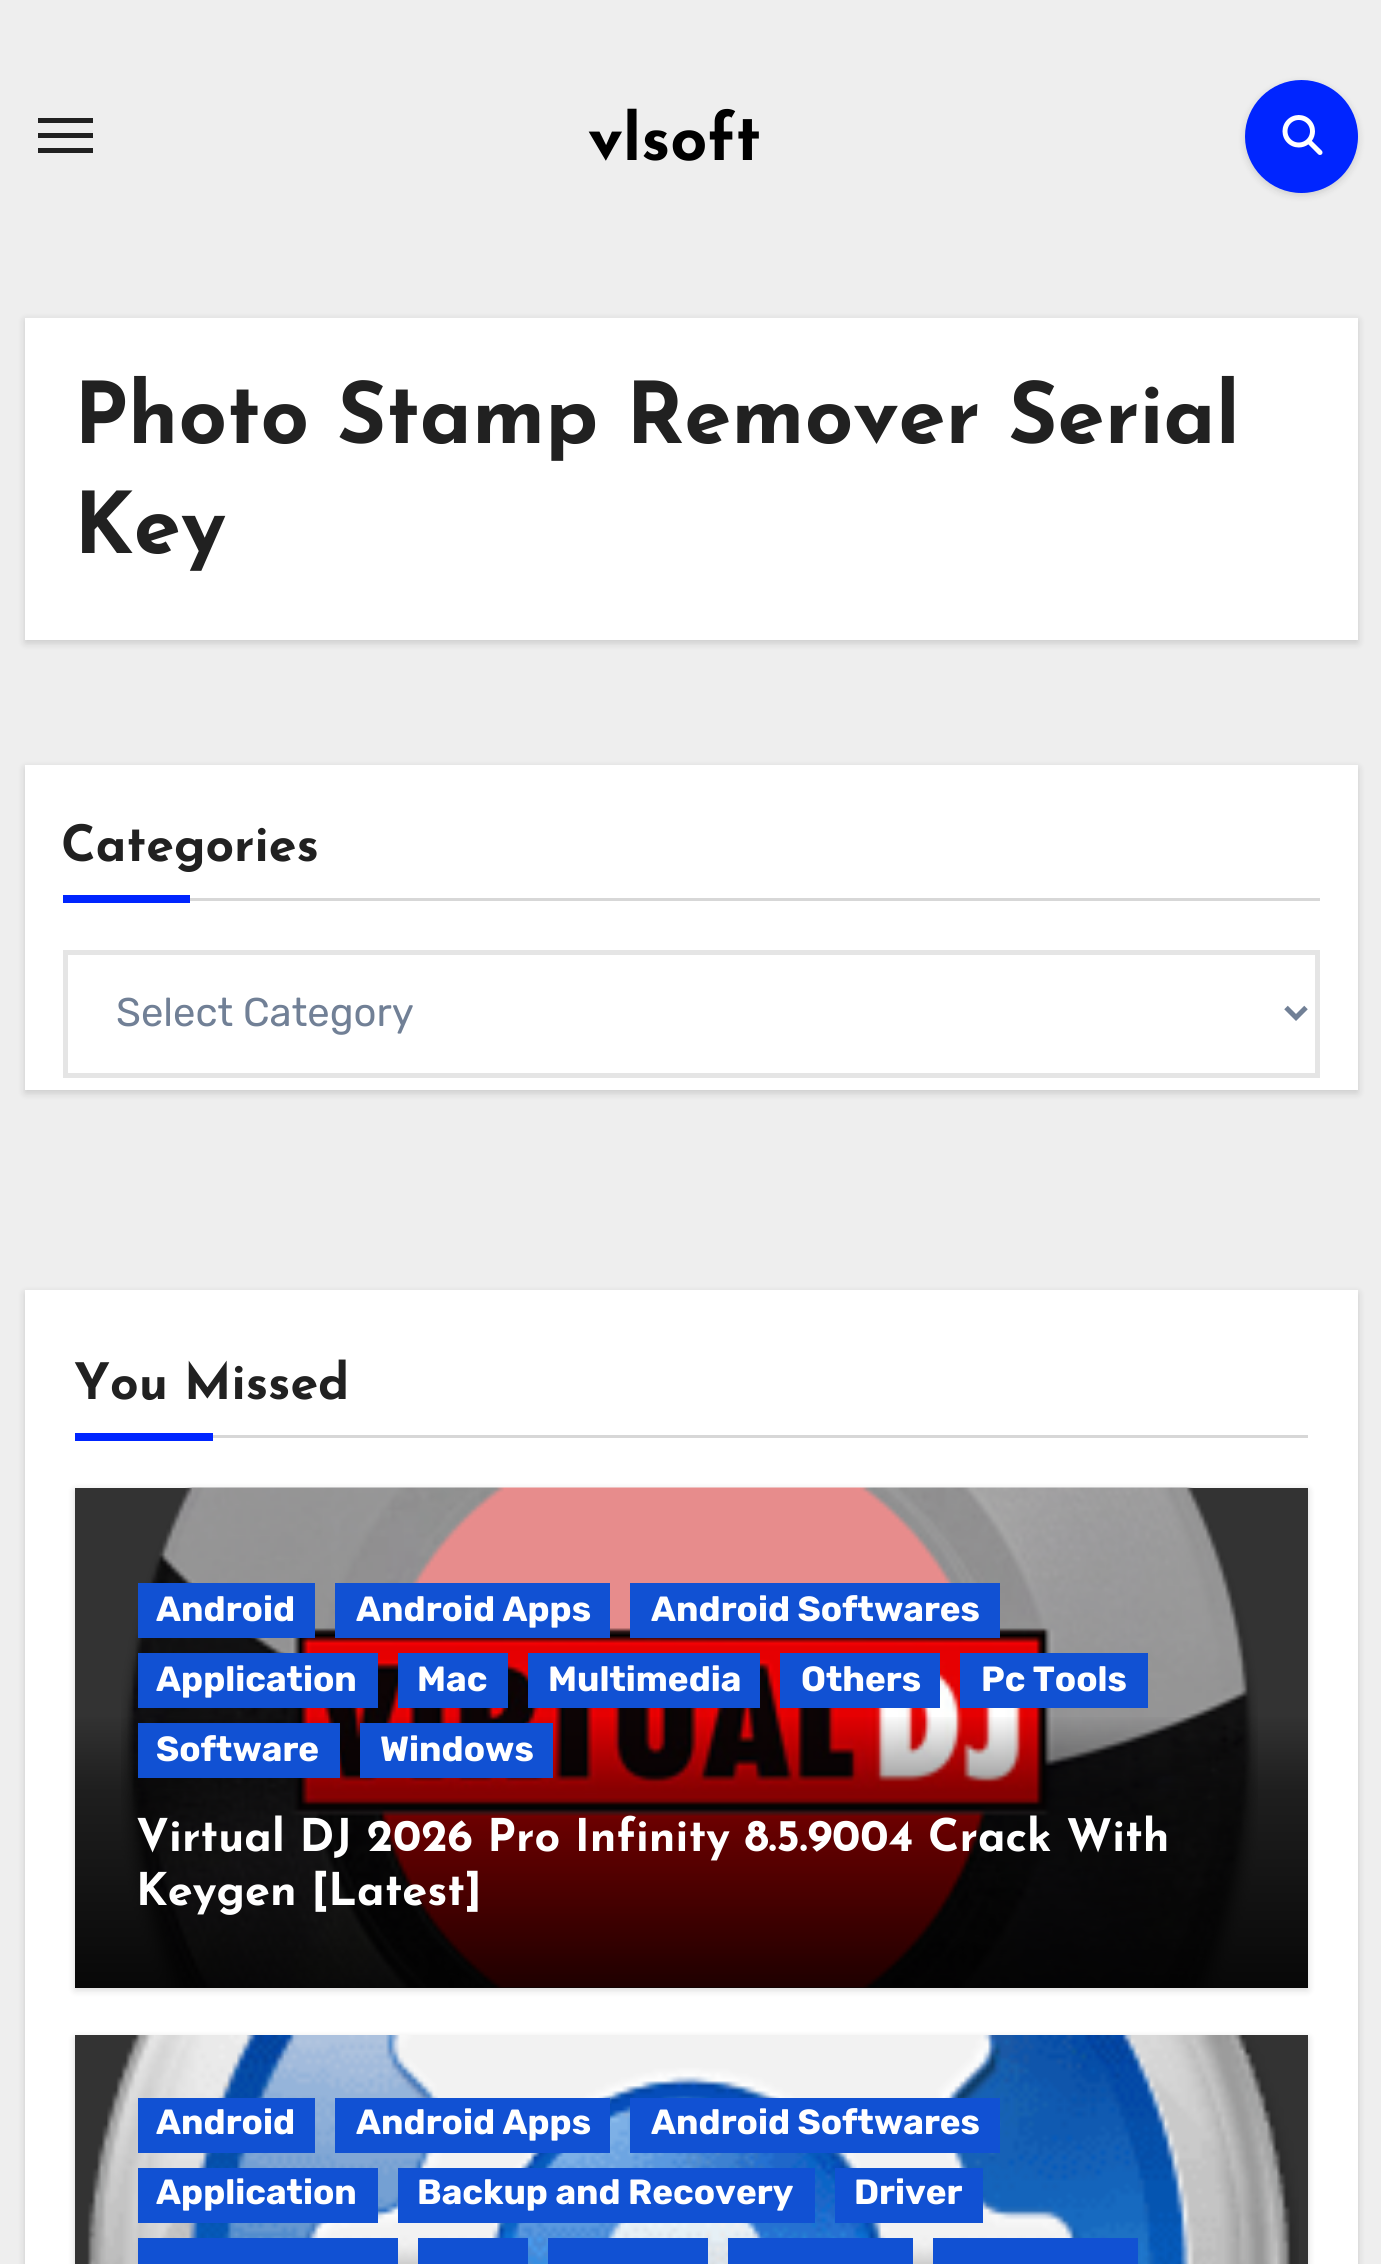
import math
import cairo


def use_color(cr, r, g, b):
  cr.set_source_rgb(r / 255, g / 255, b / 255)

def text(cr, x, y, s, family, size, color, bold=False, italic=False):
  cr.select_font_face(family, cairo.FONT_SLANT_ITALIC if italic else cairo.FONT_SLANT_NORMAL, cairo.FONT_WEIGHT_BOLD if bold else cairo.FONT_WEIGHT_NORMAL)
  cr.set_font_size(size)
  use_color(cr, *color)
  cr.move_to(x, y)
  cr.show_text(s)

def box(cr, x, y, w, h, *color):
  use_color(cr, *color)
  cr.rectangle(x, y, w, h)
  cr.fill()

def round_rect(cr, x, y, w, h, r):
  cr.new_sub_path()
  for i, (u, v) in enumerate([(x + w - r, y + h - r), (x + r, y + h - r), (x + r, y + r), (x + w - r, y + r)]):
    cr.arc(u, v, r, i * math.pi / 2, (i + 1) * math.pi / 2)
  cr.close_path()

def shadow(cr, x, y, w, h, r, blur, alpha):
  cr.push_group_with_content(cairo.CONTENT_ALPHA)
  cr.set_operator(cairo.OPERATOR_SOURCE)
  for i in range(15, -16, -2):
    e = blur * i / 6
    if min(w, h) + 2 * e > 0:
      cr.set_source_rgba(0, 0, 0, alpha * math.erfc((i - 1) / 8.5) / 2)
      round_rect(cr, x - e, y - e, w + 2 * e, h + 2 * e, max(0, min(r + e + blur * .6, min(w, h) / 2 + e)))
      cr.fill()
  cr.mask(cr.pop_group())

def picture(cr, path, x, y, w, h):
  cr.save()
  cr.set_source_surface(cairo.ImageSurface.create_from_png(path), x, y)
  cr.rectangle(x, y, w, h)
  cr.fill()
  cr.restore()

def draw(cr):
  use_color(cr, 238, 238, 238)
  cr.paint()
  box(cr, 38, 118, 55, 5, 33, 33, 33)
  box(cr, 38, 133, 55, 5, 33, 33, 33)
  box(cr, 38, 148, 55, 5, 33, 33, 33)
  use_color(cr, 0, 0, 0)
  shadow(cr, 1245, 83, 113, 112, 56, 4, 0.15)
  use_color(cr, 0, 37, 255)
  cr.arc(1301.5, 136.5, 56.5, 0, 2 * math.pi)
  cr.fill()
  picture(cr, "img_01.png", 1282, 115, 41, 40)
  use_color(cr, 0, 0, 0)
  shadow(cr, 25, 320, 1333, 323, 0, 4, 0.15)
  box(cr, 25, 318, 1333, 322, 255, 255, 255)
  use_color(cr, 0, 0, 0)
  shadow(cr, 25, 768, 1333, 325, 0, 4, 0.15)
  box(cr, 25, 765, 1333, 325, 255, 255, 255)
  box(cr, 190, 898, 1130, 3, 215, 215, 215)
  box(cr, 63, 895, 127, 8, 0, 37, 255)
  cr.rectangle(65.5, 952.5, 1252, 123)
  use_color(cr, 229, 229, 229)
  cr.set_line_width(5)
  cr.stroke()
  cr.new_path()
  cr.move_to(1286, 1007.5)
  cr.line_to(1296, 1017.5)
  cr.line_to(1306, 1007.5)
  use_color(cr, 113, 128, 150)
  cr.stroke()
  use_color(cr, 0, 0, 0)
  shadow(cr, 25, 1293, 1333, 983, 0, 4, 0.15)
  box(cr, 25, 1290, 1333, 974, 255, 255, 255)
  box(cr, 213, 1435, 1095, 3, 215, 215, 215)
  box(cr, 75, 1433, 138, 8, 0, 37, 255)
  use_color(cr, 0, 0, 0)
  shadow(cr, 75, 1490, 1233, 500, 0, 4, 0.15)
  box(cr, 75, 1488, 1233, 500, 51, 51, 51)
  picture(cr, "img_02.png", 121, 1487, 1137, 501)
  box(cr, 138, 1583, 177, 55, 17, 81, 211)
  box(cr, 335, 1583, 275, 55, 17, 81, 211)
  box(cr, 630, 1583, 370, 55, 17, 81, 211)
  box(cr, 138, 1653, 240, 55, 17, 81, 211)
  box(cr, 398, 1653, 110, 55, 17, 81, 211)
  box(cr, 528, 1653, 232, 55, 17, 81, 211)
  box(cr, 780, 1653, 160, 55, 17, 81, 211)
  box(cr, 960, 1653, 188, 55, 17, 81, 211)
  gradient = cairo.LinearGradient(691, 1488, 691, 1988)
  gradient.add_color_stop_rgba(0, 0, 0, 0, 0)
  gradient.add_color_stop_rgba(0.45, 0, 0, 0, 0)
  gradient.add_color_stop_rgba(0.6, 0, 0, 0, 0.4)
  gradient.add_color_stop_rgba(1, 0, 0, 0, 0.85)
  cr.set_source(gradient)
  cr.rectangle(75, 1717, 1233, 271)
  cr.fill()
  box(cr, 138, 1723, 202, 55, 17, 81, 211)
  box(cr, 360, 1723, 193, 55, 17, 81, 211)
  use_color(cr, 0, 0, 0)
  shadow(cr, 75, 2038, 1233, 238, 0, 4, 0.15)
  box(cr, 75, 2035, 1233, 229, 51, 51, 51)
  picture(cr, "img_03.png", 87, 2035, 1212, 229)
  box(cr, 138, 2098, 177, 55, 17, 81, 211)
  box(cr, 335, 2098, 275, 55, 17, 81, 211)
  box(cr, 630, 2098, 370, 55, 17, 81, 211)
  box(cr, 138, 2168, 240, 55, 17, 81, 211)
  box(cr, 398, 2168, 417, 55, 17, 81, 211)
  box(cr, 835, 2168, 148, 55, 17, 81, 211)
  box(cr, 138, 2238, 260, 26, 17, 81, 211)
  box(cr, 418, 2238, 110, 26, 17, 81, 211)
  box(cr, 548, 2238, 160, 26, 17, 81, 211)
  box(cr, 728, 2238, 185, 26, 17, 81, 211)
  box(cr, 933, 2238, 205, 26, 17, 81, 211)
  text(cr, 588, 160, "vlsoft", "Josefin Sans", 65, (0, 0, 0), bold=True)
  text(cr, 74, 443, "Photo Stamp Remover Serial", "Josefin Sans", 85, (33, 33, 33), bold=True)
  text(cr, 74, 553, "Key", "Josefin Sans", 85, (33, 33, 33), bold=True)
  text(cr, 61, 861, "Categories", "Josefin Sans", 50, (33, 33, 33), bold=True)
  text(cr, 116, 1026, "Select Category", "Rubik Light", 40, (113, 128, 150))
  text(cr, 74, 1399, "You Missed", "Josefin Sans", 50, (33, 33, 33), bold=True)
  text(cr, 156, 1621, "Android", "Rubik", 35, (255, 255, 255), bold=True)
  text(cr, 356, 1621, "Android Apps", "Rubik", 35, (255, 255, 255), bold=True)
  text(cr, 651, 1621, "Android Softwares", "Rubik", 35, (255, 255, 255), bold=True)
  text(cr, 156, 1691, "Application", "Rubik", 35, (255, 255, 255), bold=True)
  text(cr, 417, 1691, "Mac", "Rubik", 35, (255, 255, 255), bold=True)
  text(cr, 548, 1691, "Multimedia", "Rubik", 35, (255, 255, 255), bold=True)
  text(cr, 801, 1691, "Others", "Rubik", 35, (255, 255, 255), bold=True)
  text(cr, 981, 1691, "Pc Tools", "Rubik", 35, (255, 255, 255), bold=True)
  text(cr, 156, 1761, "Software", "Rubik", 35, (255, 255, 255), bold=True)
  text(cr, 380, 1761, "Windows", "Rubik", 35, (255, 255, 255), bold=True)
  text(cr, 136, 1851, "Virtual DJ 2026 Pro Infinity 8.5.9004 Crack With", "Josefin Sans", 45, (255, 255, 255), bold=True)
  text(cr, 136, 1905, "Keygen [Latest]", "Josefin Sans", 45, (255, 255, 255), bold=True)
  text(cr, 156, 2134, "Android", "Rubik", 35, (255, 255, 255), bold=True)
  text(cr, 356, 2134, "Android Apps", "Rubik", 35, (255, 255, 255), bold=True)
  text(cr, 651, 2134, "Android Softwares", "Rubik", 35, (255, 255, 255), bold=True)
  text(cr, 156, 2204, "Application", "Rubik", 35, (255, 255, 255), bold=True)
  text(cr, 417, 2204, "Backup and Recovery", "Rubik", 35, (255, 255, 255), bold=True)
  text(cr, 854, 2204, "Driver", "Rubik", 35, (255, 255, 255), bold=True)


surface = cairo.ImageSurface(cairo.FORMAT_RGB24, 1381, 2264)
cr = cairo.Context(surface)
options = cairo.FontOptions()
options.set_hint_metrics(cairo.HINT_METRICS_OFF)
options.set_hint_style(cairo.HINT_STYLE_NONE)
cr.set_font_options(options)
cr.set_miter_limit(4)
draw(cr)
surface.write_to_png("out.png")
